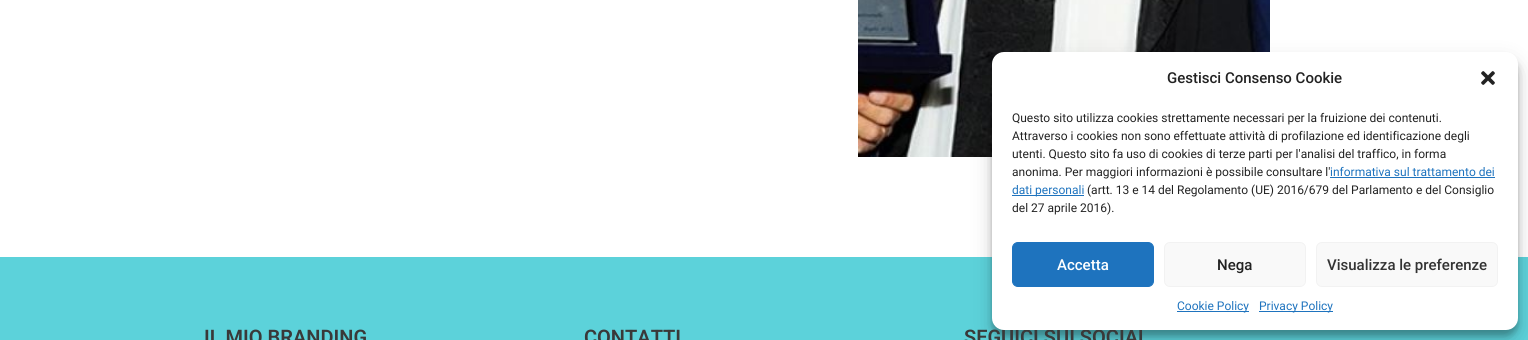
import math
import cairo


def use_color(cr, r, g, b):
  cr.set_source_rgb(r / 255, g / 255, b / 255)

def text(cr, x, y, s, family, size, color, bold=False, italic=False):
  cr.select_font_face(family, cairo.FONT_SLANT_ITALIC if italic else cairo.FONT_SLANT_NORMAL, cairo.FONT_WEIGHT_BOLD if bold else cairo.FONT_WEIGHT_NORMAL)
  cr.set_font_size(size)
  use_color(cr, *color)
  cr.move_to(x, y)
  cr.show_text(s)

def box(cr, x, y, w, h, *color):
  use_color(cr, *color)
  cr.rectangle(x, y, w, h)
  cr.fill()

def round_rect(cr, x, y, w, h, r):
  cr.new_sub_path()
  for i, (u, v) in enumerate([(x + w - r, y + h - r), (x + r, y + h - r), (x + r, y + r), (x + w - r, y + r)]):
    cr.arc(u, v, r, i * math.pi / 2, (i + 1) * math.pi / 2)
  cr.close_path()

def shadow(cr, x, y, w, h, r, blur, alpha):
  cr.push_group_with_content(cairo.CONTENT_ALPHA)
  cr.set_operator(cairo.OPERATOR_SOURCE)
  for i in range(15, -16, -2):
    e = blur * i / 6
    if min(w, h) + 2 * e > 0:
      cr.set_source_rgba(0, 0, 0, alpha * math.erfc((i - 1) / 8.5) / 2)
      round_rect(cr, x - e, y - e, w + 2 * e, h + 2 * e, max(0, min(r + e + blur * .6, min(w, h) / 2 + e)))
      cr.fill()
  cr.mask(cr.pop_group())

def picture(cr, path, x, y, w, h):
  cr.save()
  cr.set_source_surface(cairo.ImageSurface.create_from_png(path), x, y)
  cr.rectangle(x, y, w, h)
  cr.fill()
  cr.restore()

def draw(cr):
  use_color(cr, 255, 255, 255)
  cr.paint()
  picture(cr, "img_01.png", 858, 0, 412, 157)
  box(cr, 0, 257, 1528, 83, 92, 210, 218)
  use_color(cr, 0, 0, 0)
  shadow(cr, 992, 58, 526, 278, 12, 3, 0.23)
  shadow(cr, 992, 62, 526, 278, 12, 10, 0.19)
  text(cr, 204, 344, "IL MIO BRANDING", "Roboto SemiBold", 20, (57, 57, 57))
  text(cr, 584, 344, "CONTATTI", "Roboto SemiBold", 20, (57, 57, 57))
  text(cr, 964, 344, "SEGUICI SUI SOCIAL", "Roboto SemiBold", 20, (57, 57, 57))
  use_color(cr, 255, 255, 255)
  round_rect(cr, 992, 52, 526, 278, 12)
  cr.fill()
  text(cr, 1012, 212, "del 27 aprile 2016).", "Roboto", 12, (34, 34, 34))
  text(cr, 1087, 194, "(artt. 13 e 14 del Regolamento (UE) 2016/679 del Parlamento e del Consiglio", "Roboto", 12, (34, 34, 34))
  box(cr, 1012, 195, 72, 1, 30, 115, 190)
  text(cr, 1012, 194, "dati personali", "Roboto", 12, (30, 115, 190))
  text(cr, 1330, 176, "informativa sul trattamento dei", "Roboto", 12, (30, 115, 190))
  box(cr, 1330, 177, 165, 1, 30, 115, 190)
  text(cr, 1012, 176, "anonima. Per maggiori informazioni è possibile consultare l'", "Roboto", 12, (34, 34, 34))
  text(cr, 1012, 158, "utenti. Questo sito fa uso di cookies di terze parti per l'analisi del traffico, in forma", "Roboto", 12, (34, 34, 34))
  text(cr, 1012, 140, "Attraverso i cookies non sono effettuate attività di profilazione ed identificazione degli", "Roboto", 12, (34, 34, 34))
  text(cr, 1012, 122, "Questo sito utilizza cookies strettamente necessari per la fruizione dei contenuti.", "Roboto", 12, (34, 34, 34))
  picture(cr, "img_02.png", 1481, 71, 14, 14)
  box(cr, 1259, 311, 74, 1, 30, 115, 190)
  text(cr, 1259, 310, "Privacy Policy", "Roboto", 12, (30, 115, 190))
  box(cr, 1177, 311, 72, 1, 30, 115, 190)
  text(cr, 1177, 310, "Cookie Policy", "Roboto", 12, (30, 115, 190))
  use_color(cr, 249, 249, 249)
  round_rect(cr, 1316.5, 242.5, 181, 44, 5.5)
  cr.fill_preserve()
  use_color(cr, 242, 242, 242)
  cr.set_line_width(1)
  cr.stroke()
  text(cr, 1327, 270, "Visualizza le preferenze", "Roboto Medium", 15, (51, 51, 51))
  use_color(cr, 249, 249, 249)
  round_rect(cr, 1164.5, 242.5, 141, 44, 5.5)
  cr.fill_preserve()
  use_color(cr, 242, 242, 242)
  cr.stroke()
  text(cr, 1217, 270, "Nega", "Roboto Medium", 15, (34, 34, 34))
  use_color(cr, 30, 115, 190)
  round_rect(cr, 1012.5, 242.5, 141, 44, 5.5)
  cr.fill_preserve()
  cr.stroke()
  text(cr, 1057, 270, "Accetta", "Roboto Medium", 15, (255, 255, 255))
  text(cr, 1167, 83, "Gestisci Consenso Cookie", "Roboto Medium", 15, (34, 34, 34))


surface = cairo.ImageSurface(cairo.FORMAT_RGB24, 1528, 340)
cr = cairo.Context(surface)
options = cairo.FontOptions()
options.set_hint_metrics(cairo.HINT_METRICS_OFF)
options.set_hint_style(cairo.HINT_STYLE_NONE)
cr.set_font_options(options)
cr.set_miter_limit(4)
draw(cr)
surface.write_to_png("out.png")
